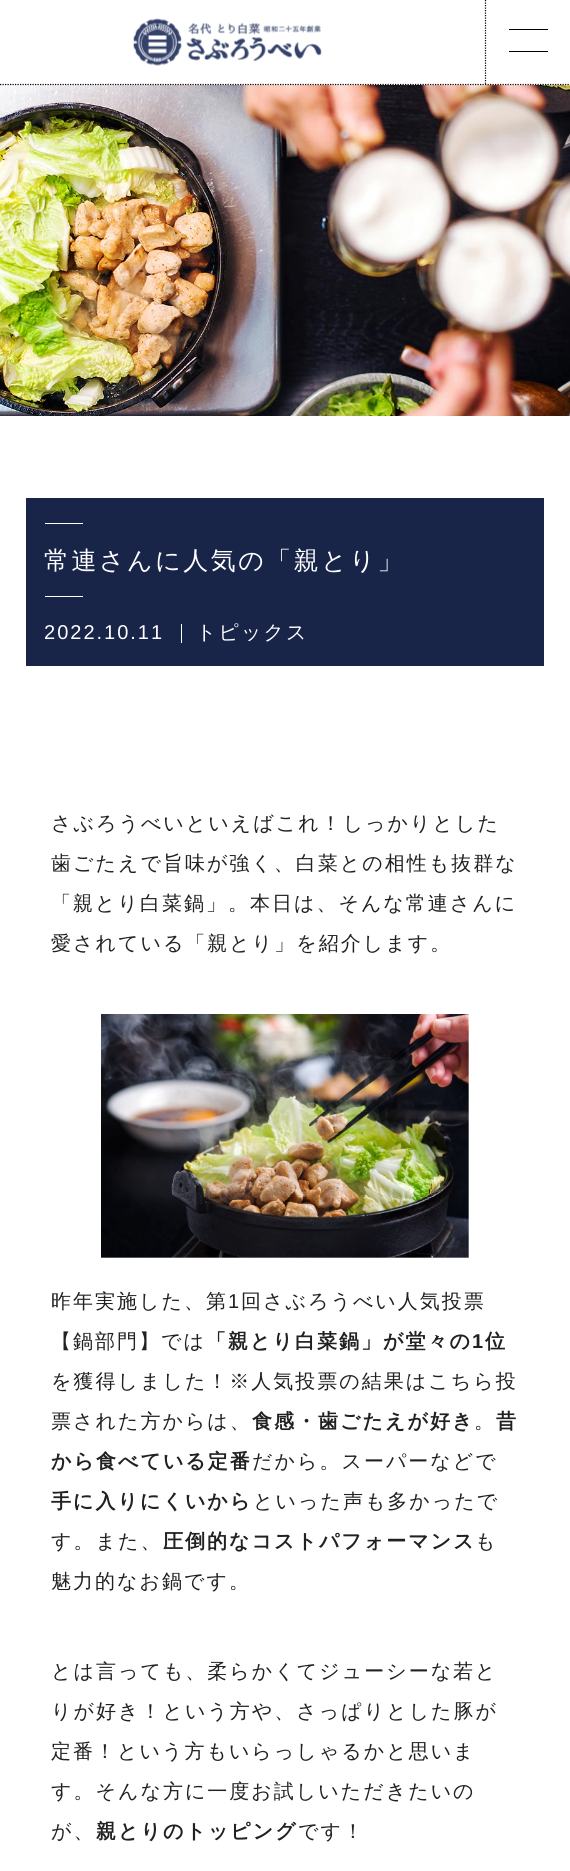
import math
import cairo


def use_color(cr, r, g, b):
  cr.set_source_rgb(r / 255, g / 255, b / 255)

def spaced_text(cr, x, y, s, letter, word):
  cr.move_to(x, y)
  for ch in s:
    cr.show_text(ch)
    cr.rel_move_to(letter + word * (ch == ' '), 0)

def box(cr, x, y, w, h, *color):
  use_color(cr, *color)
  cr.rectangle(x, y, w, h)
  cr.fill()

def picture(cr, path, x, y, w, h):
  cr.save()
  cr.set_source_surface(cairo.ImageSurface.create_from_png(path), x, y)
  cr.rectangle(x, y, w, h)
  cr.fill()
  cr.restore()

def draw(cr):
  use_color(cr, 255, 255, 255)
  cr.paint()
  picture(cr, "img_02.png", 0, 85, 570, 331)
  cr.new_path()
  cr.move_to(0, 84.5)
  cr.line_to(570, 84.5)
  use_color(cr, 0, 0, 0)
  cr.set_line_width(1.2)
  cr.set_dash([1.25, 1.25])
  cr.stroke()
  picture(cr, "img_01.png", 133, 18, 189, 48)
  cr.new_path()
  cr.move_to(485.5, 0)
  cr.line_to(485.5, 84)
  cr.stroke()
  box(cr, 509, 29, 39, 1, 0, 0, 0)
  box(cr, 509, 51, 39, 1, 0, 0, 0)
  box(cr, 26, 498, 518, 168, 25, 37, 72)
  box(cr, 45, 523, 38, 1, 255, 255, 255)
  box(cr, 45, 596, 38, 1, 255, 255, 255)
  box(cr, 181, 624, 1, 19, 255, 255, 255)
  picture(cr, "img_03.png", 101, 1014, 368, 244)
  cr.select_font_face("WenQuanYi Zen Hei Medium")
  cr.set_font_size(25)
  spaced_text(cr, 44, 569, "常連さんに人気の「親とり」", 2.5, 0)
  cr.select_font_face("Liberation Sans")
  cr.set_font_size(20)
  spaced_text(cr, 44, 639, "2022.10.11", 2, 0)
  cr.select_font_face("WenQuanYi Zen Hei Medium")
  spaced_text(cr, 196, 639, "トピックス", 2, 0)
  use_color(cr, 33, 33, 33)
  spaced_text(cr, 51, 830, "さぶろうべいといえばこれ！しっかりとした", 2, 0)
  spaced_text(cr, 51, 870, "歯ごたえで旨味が強く、白菜との相性も抜群な", 2, 0)
  spaced_text(cr, 51, 910, "「親とり白菜鍋」。本日は、そんな常連さんに", 2, 0)
  spaced_text(cr, 51, 950, "愛されている「親とり」を紹介します。", 2, 0)
  spaced_text(cr, 51, 1308, "昨年実施した、第", 2, 0)
  cr.select_font_face("Liberation Sans")
  spaced_text(cr, 228, 1308, "1", 2, 0)
  cr.select_font_face("WenQuanYi Zen Hei Medium")
  spaced_text(cr, 241, 1308, "回さぶろうべい人気投票", 2, 0)
  spaced_text(cr, 51, 1348, "【鍋部門】では", 2, 0)
  cr.select_font_face("WenQuanYi Zen Hei", cairo.FONT_SLANT_NORMAL, cairo.FONT_WEIGHT_BOLD)
  spaced_text(cr, 206, 1348, "「親とり白菜鍋」が堂々の", 2, 0)
  cr.select_font_face("Liberation Sans", cairo.FONT_SLANT_NORMAL, cairo.FONT_WEIGHT_BOLD)
  spaced_text(cr, 472, 1348, "1", 2, 0)
  cr.select_font_face("WenQuanYi Zen Hei", cairo.FONT_SLANT_NORMAL, cairo.FONT_WEIGHT_BOLD)
  spaced_text(cr, 485, 1348, "位", 2, 0)
  cr.select_font_face("WenQuanYi Zen Hei Medium")
  spaced_text(cr, 51, 1388, "を獲得しました！※人気投票の結果はこちら投", 2, 0)
  spaced_text(cr, 51, 1428, "票された方からは、", 2, 0)
  cr.select_font_face("WenQuanYi Zen Hei", cairo.FONT_SLANT_NORMAL, cairo.FONT_WEIGHT_BOLD)
  spaced_text(cr, 252, 1428, "食感・歯ごたえが好き", 2, 0)
  cr.select_font_face("WenQuanYi Zen Hei Medium")
  spaced_text(cr, 474, 1428, "。", 2, 0)
  cr.select_font_face("WenQuanYi Zen Hei", cairo.FONT_SLANT_NORMAL, cairo.FONT_WEIGHT_BOLD)
  spaced_text(cr, 496, 1428, "昔", 2, 0)
  spaced_text(cr, 51, 1468, "から食べている定番", 2, 0)
  cr.select_font_face("WenQuanYi Zen Hei Medium")
  spaced_text(cr, 252, 1468, "だから。スーパーなどで", 2, 0)
  cr.select_font_face("WenQuanYi Zen Hei", cairo.FONT_SLANT_NORMAL, cairo.FONT_WEIGHT_BOLD)
  spaced_text(cr, 51, 1508, "手に入りにくいから", 2, 0)
  cr.select_font_face("WenQuanYi Zen Hei Medium")
  spaced_text(cr, 253, 1508, "といった声も多かったで", 2, 0)
  spaced_text(cr, 51, 1548, "す。また、", 2, 0)
  cr.select_font_face("WenQuanYi Zen Hei", cairo.FONT_SLANT_NORMAL, cairo.FONT_WEIGHT_BOLD)
  spaced_text(cr, 163, 1548, "圧倒的なコストパフォーマンス", 2, 0)
  cr.select_font_face("WenQuanYi Zen Hei Medium")
  spaced_text(cr, 475, 1548, "も", 2, 0)
  spaced_text(cr, 51, 1588, "魅力的なお鍋です。", 2, 0)
  spaced_text(cr, 51, 1678, "とは言っても、柔らかくてジューシーな若と", 2, 0)
  spaced_text(cr, 51, 1718, "りが好き！という方や、さっぱりとした豚が", 2, 0)
  spaced_text(cr, 51, 1758, "定番！という方もいらっしゃるかと思いま", 2, 0)
  spaced_text(cr, 51, 1798, "す。そんな方に一度お試しいただきたいの", 2, 0)
  spaced_text(cr, 51, 1838, "が、", 2, 0)
  cr.select_font_face("WenQuanYi Zen Hei", cairo.FONT_SLANT_NORMAL, cairo.FONT_WEIGHT_BOLD)
  spaced_text(cr, 96, 1838, "親とりのトッピング", 2, 0)
  cr.select_font_face("WenQuanYi Zen Hei Medium")
  spaced_text(cr, 298, 1838, "です！", 2, 0)


surface = cairo.ImageSurface(cairo.FORMAT_RGB24, 570, 1871)
cr = cairo.Context(surface)
options = cairo.FontOptions()
options.set_hint_metrics(cairo.HINT_METRICS_OFF)
options.set_hint_style(cairo.HINT_STYLE_NONE)
cr.set_font_options(options)
cr.set_miter_limit(4)
draw(cr)
surface.write_to_png("out.png")
